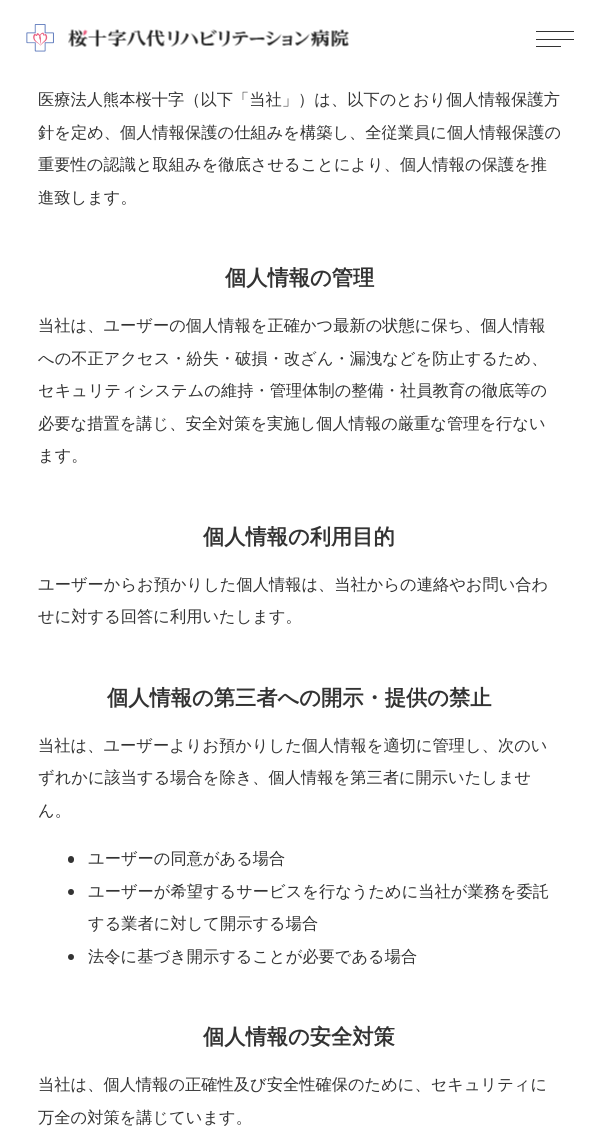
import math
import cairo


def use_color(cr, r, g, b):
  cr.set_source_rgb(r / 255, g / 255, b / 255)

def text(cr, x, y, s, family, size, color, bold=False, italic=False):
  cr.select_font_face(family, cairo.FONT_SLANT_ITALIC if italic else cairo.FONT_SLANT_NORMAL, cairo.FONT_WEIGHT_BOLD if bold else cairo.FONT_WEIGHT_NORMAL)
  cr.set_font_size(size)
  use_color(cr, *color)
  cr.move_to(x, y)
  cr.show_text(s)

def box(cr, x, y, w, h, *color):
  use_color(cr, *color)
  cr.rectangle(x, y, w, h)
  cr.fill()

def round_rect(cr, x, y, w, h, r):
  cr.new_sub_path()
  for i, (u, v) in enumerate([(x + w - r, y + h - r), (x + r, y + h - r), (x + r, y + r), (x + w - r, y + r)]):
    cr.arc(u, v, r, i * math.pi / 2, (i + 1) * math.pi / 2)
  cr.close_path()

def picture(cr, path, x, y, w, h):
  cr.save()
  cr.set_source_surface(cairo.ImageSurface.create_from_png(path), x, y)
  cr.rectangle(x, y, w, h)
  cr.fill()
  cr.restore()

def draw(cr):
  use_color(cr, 255, 255, 255)
  cr.paint()
  picture(cr, "img_01.png", 26, 24, 28, 28)
  picture(cr, "img_02.png", 68, 29, 281, 18)
  box(cr, 536, 39, 38, 1, 51, 51, 51)
  box(cr, 536, 31, 38, 1, 51, 51, 51)
  box(cr, 536, 46, 25, 1, 51, 51, 51)
  round_rect(cr, 68, 856, 6, 7, 3)
  cr.fill()
  cr.arc(71, 892, 3, 0, 2 * math.pi)
  cr.fill()
  cr.arc(71, 957, 3, 0, 2 * math.pi)
  cr.fill()
  text(cr, 38, 105, "医療法人熊本桜十字（以下「当社」）は、以下のとおり個人情報保護方", "WenQuanYi Zen Hei Medium", 16.25, (51, 51, 51))
  text(cr, 38, 138, "針を定め、個人情報保護の仕組みを構築し、全従業員に個人情報保護の", "WenQuanYi Zen Hei Medium", 16.25, (51, 51, 51))
  text(cr, 38, 170, "重要性の認識と取組みを徹底させることにより、個人情報の保護を推", "WenQuanYi Zen Hei Medium", 16.25, (51, 51, 51))
  text(cr, 38, 203, "進致します。", "WenQuanYi Zen Hei Medium", 16.25, (51, 51, 51))
  text(cr, 225, 285, "個人情報の管理", "WenQuanYi Zen Hei", 21.25, (51, 51, 51), bold=True)
  text(cr, 38, 331, "当社は、ユーザーの個人情報を正確かつ最新の状態に保ち、個人情報", "WenQuanYi Zen Hei Medium", 16.25, (51, 51, 51))
  text(cr, 38, 364, "への不正アクセス・紛失・破損・改ざん・漏洩などを防止するため、", "WenQuanYi Zen Hei Medium", 16.25, (51, 51, 51))
  text(cr, 38, 396, "セキュリティシステムの維持・管理体制の整備・社員教育の徹底等の", "WenQuanYi Zen Hei Medium", 16.25, (51, 51, 51))
  text(cr, 38, 429, "必要な措置を講じ、安全対策を実施し個人情報の厳重な管理を行ない", "WenQuanYi Zen Hei Medium", 16.25, (51, 51, 51))
  text(cr, 38, 461, "ます。", "WenQuanYi Zen Hei Medium", 16.25, (51, 51, 51))
  text(cr, 203, 544, "個人情報の利用目的", "WenQuanYi Zen Hei", 21.25, (51, 51, 51), bold=True)
  text(cr, 38, 590, "ユーザーからお預かりした個人情報は、当社からの連絡やお問い合わ", "WenQuanYi Zen Hei Medium", 16.25, (51, 51, 51))
  text(cr, 38, 622, "せに対する回答に利用いたします。", "WenQuanYi Zen Hei Medium", 16.25, (51, 51, 51))
  text(cr, 107, 705, "個人情報の第三者への開示・提供の禁止", "WenQuanYi Zen Hei", 21.25, (51, 51, 51), bold=True)
  text(cr, 38, 751, "当社は、ユーザーよりお預かりした個人情報を適切に管理し、次のい", "WenQuanYi Zen Hei Medium", 16.25, (51, 51, 51))
  text(cr, 38, 783, "ずれかに該当する場合を除き、個人情報を第三者に開示いたしませ", "WenQuanYi Zen Hei Medium", 16.25, (51, 51, 51))
  text(cr, 38, 816, "ん。", "WenQuanYi Zen Hei Medium", 16.25, (51, 51, 51))
  text(cr, 88, 864, "ユーザーの同意がある場合", "WenQuanYi Zen Hei Medium", 16.25, (51, 51, 51))
  text(cr, 88, 897, "ユーザーが希望するサービスを行なうために当社が業務を委託", "WenQuanYi Zen Hei Medium", 16.25, (51, 51, 51))
  text(cr, 88, 929, "する業者に対して開示する場合", "WenQuanYi Zen Hei Medium", 16.25, (51, 51, 51))
  text(cr, 88, 962, "法令に基づき開示することが必要である場合", "WenQuanYi Zen Hei Medium", 16.25, (51, 51, 51))
  text(cr, 203, 1044, "個人情報の安全対策", "WenQuanYi Zen Hei", 21.25, (51, 51, 51), bold=True)
  text(cr, 38, 1090, "当社は、個人情報の正確性及び安全性確保のために、セキュリティに", "WenQuanYi Zen Hei Medium", 16.25, (51, 51, 51))
  text(cr, 38, 1123, "万全の対策を講じています。", "WenQuanYi Zen Hei Medium", 16.25, (51, 51, 51))


surface = cairo.ImageSurface(cairo.FORMAT_RGB24, 598, 1148)
cr = cairo.Context(surface)
options = cairo.FontOptions()
options.set_hint_metrics(cairo.HINT_METRICS_OFF)
options.set_hint_style(cairo.HINT_STYLE_NONE)
cr.set_font_options(options)
cr.set_miter_limit(4)
draw(cr)
surface.write_to_png("out.png")
